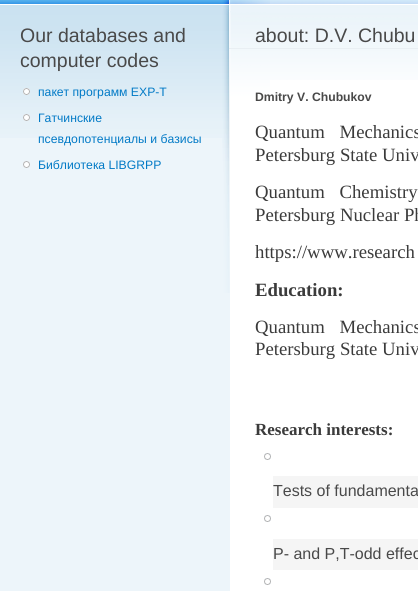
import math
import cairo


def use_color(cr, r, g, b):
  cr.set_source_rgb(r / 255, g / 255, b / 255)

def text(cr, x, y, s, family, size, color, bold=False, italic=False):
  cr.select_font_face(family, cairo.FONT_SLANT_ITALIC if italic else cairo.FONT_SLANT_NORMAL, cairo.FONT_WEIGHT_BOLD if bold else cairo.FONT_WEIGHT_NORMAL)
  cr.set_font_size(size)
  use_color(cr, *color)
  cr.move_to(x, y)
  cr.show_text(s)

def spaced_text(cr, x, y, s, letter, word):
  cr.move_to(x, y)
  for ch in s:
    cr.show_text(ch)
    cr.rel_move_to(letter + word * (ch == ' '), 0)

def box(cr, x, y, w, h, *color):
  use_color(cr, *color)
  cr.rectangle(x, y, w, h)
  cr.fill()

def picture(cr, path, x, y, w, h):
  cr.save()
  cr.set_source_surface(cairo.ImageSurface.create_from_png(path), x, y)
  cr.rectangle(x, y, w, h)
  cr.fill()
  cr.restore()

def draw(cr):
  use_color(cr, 237, 245, 250)
  cr.paint()
  picture(cr, "img_01.png", 0, 0, 222, 138)
  picture(cr, "img_02.png", 23, 88, 7, 7)
  picture(cr, "img_03.png", 23, 114, 7, 7)
  picture(cr, "img_04.png", 23, 161, 7, 7)
  box(cr, 230, 80, 188, 511, 255, 255, 255)
  picture(cr, "img_05.png", 270, 0, 148, 80)
  picture(cr, "img_06.png", 222, 0, 48, 293)
  box(cr, 229, 48, 189, 1, 233, 239, 243)
  picture(cr, "img_07.png", 264, 453, 7, 7)
  box(cr, 273, 476, 145, 32, 245, 245, 245)
  picture(cr, "img_07.png", 264, 515, 7, 7)
  box(cr, 273, 539, 145, 31, 245, 245, 245)
  picture(cr, "img_07.png", 264, 578, 7, 7)
  text(cr, 20, 42, "Our databases and", "Liberation Sans", 19.5, (73, 73, 73))
  text(cr, 20, 67, "computer codes", "Liberation Sans", 19.5, (73, 73, 73))
  text(cr, 38, 96, "пакет программ EXP-T", "Liberation Sans", 12.2, (2, 122, 198))
  text(cr, 38, 122, "Гатчинские", "Liberation Sans", 12.2, (2, 122, 198))
  text(cr, 38, 143, "псевдопотенциалы и базисы", "Liberation Sans", 12.2, (2, 122, 198))
  text(cr, 38, 169, "Библиотека LIBGRPP", "Liberation Sans", 12.2, (2, 122, 198))
  text(cr, 255, 42, "about: D.V. Chubu", "Liberation Sans", 19.5, (73, 73, 73))
  text(cr, 255, 101, "Dmitry V. Chubukov", "Liberation Sans", 12.2, (73, 73, 73), bold=True)
  cr.select_font_face("Liberation Serif")
  cr.set_font_size(18.75)
  use_color(cr, 59, 59, 59)
  spaced_text(cr, 255, 138, "Quantum Mechanics", 0, 10)
  text(cr, 255, 161, "Petersburg State Univ", "Liberation Serif", 18.75, (59, 59, 59))
  spaced_text(cr, 255, 198, "Quantum Chemistry", 0, 10)
  text(cr, 255, 221, "Petersburg Nuclear Ph", "Liberation Serif", 18.75, (59, 59, 59))
  text(cr, 255, 258, "https://www.research", "Liberation Serif", 18.75, (59, 59, 59))
  text(cr, 255, 296, "Education:", "Liberation Serif", 18.75, (59, 59, 59), bold=True)
  cr.select_font_face("Liberation Serif")
  spaced_text(cr, 255, 333, "Quantum Mechanics", 0, 10)
  text(cr, 255, 355, "Petersburg State Univ", "Liberation Serif", 18.75, (59, 59, 59))
  text(cr, 255, 435, "Research interests:", "Liberation Serif", 17, (59, 59, 59), bold=True)
  text(cr, 273, 496, "Tests of fundamenta", "Liberation Sans", 16, (73, 73, 73))
  text(cr, 273, 559, "P- and P,T-odd effec", "Liberation Sans", 16, (73, 73, 73))


surface = cairo.ImageSurface(cairo.FORMAT_RGB24, 418, 591)
cr = cairo.Context(surface)
options = cairo.FontOptions()
options.set_hint_metrics(cairo.HINT_METRICS_OFF)
options.set_hint_style(cairo.HINT_STYLE_NONE)
cr.set_font_options(options)
cr.set_miter_limit(4)
draw(cr)
surface.write_to_png("out.png")
